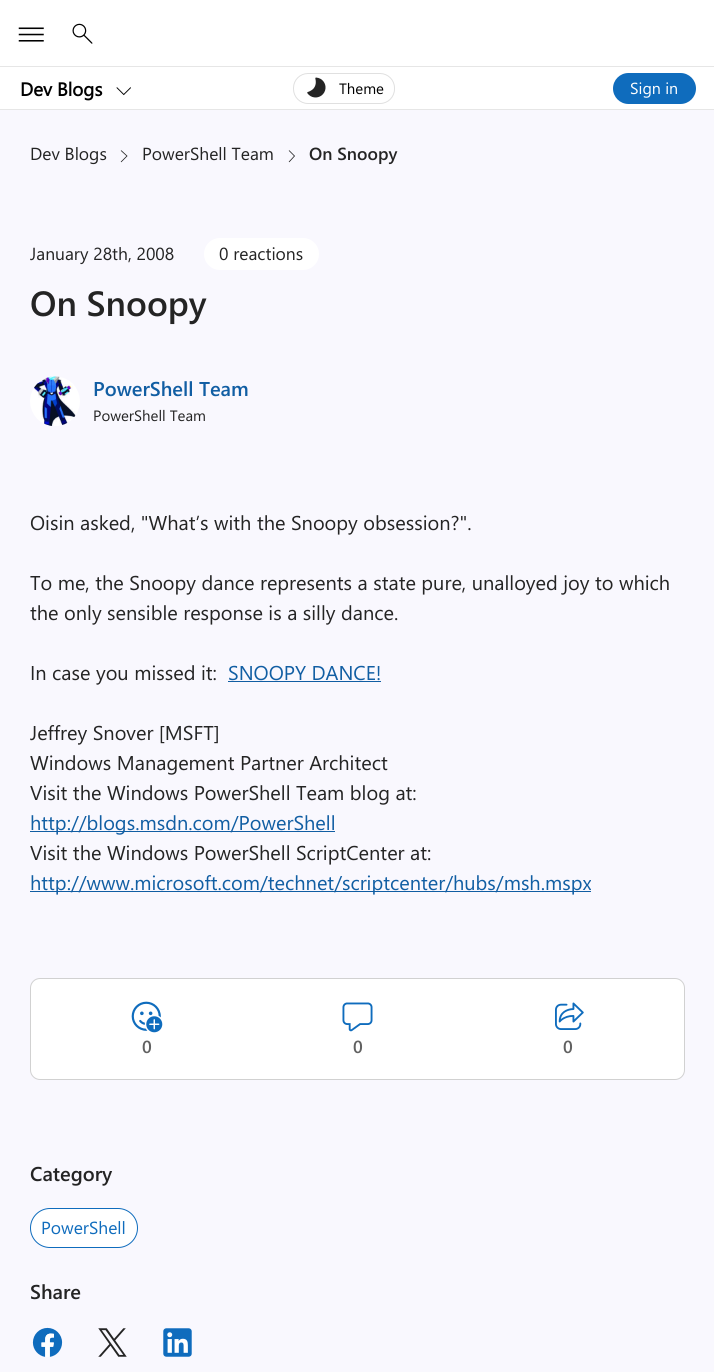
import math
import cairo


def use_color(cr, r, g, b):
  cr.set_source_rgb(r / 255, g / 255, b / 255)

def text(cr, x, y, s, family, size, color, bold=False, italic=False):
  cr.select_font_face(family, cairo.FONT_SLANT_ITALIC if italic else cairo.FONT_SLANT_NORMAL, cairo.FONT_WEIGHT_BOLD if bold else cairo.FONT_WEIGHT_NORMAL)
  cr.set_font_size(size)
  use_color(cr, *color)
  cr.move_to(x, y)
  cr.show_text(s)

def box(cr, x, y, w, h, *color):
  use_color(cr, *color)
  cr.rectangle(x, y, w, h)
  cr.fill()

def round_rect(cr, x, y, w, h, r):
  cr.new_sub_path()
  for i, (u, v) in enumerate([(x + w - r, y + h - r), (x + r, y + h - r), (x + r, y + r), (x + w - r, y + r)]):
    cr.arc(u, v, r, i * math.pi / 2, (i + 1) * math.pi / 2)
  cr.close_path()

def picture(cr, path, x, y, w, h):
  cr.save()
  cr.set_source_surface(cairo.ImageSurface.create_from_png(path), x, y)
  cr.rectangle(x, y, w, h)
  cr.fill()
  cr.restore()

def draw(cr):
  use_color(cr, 249, 248, 254)
  cr.paint()
  box(cr, 0, 0, 714, 68, 255, 255, 255)
  box(cr, 0, 66, 714, 1, 230, 230, 230)
  picture(cr, "img_01.png", 18, 27, 26, 15)
  picture(cr, "img_02.png", 72, 23, 21, 21)
  box(cr, 0, 68, 714, 41, 255, 255, 255)
  box(cr, 0, 109, 714, 1, 230, 230, 230)
  picture(cr, "img_03.png", 116, 87, 15, 9)
  round_rect(cr, 293.5, 73.5, 101, 30, 14.5)
  use_color(cr, 224, 224, 224)
  cr.set_line_width(1)
  cr.stroke()
  picture(cr, "img_04.png", 307, 77, 19, 21)
  use_color(cr, 15, 108, 189)
  round_rect(cr, 613, 73, 83, 31, 15.5)
  cr.fill()
  cr.new_path()
  cr.move_to(121, 150.5)
  cr.line_to(127, 156)
  cr.line_to(121, 162)
  use_color(cr, 36, 36, 36)
  cr.set_line_width(0.8)
  cr.stroke()
  cr.new_path()
  cr.move_to(289, 150.5)
  cr.line_to(294.5, 156)
  cr.line_to(289, 162)
  cr.stroke()
  use_color(cr, 255, 255, 255)
  round_rect(cr, 204, 238, 115, 32, 16)
  cr.fill()
  picture(cr, "img_05.png", 30, 376, 50, 50)
  box(cr, 228, 681, 153, 1, 17, 94, 163)
  box(cr, 30, 831, 305, 1, 17, 94, 163)
  box(cr, 30, 891, 561, 1, 17, 94, 163)
  use_color(cr, 255, 255, 255)
  round_rect(cr, 30.5, 978.5, 654, 101, 9.5)
  cr.fill_preserve()
  use_color(cr, 209, 209, 209)
  cr.set_line_width(1)
  cr.stroke()
  picture(cr, "img_06.png", 131, 1001, 32, 32)
  picture(cr, "img_07.png", 342, 1002, 31, 30)
  picture(cr, "img_08.png", 555, 1002, 29, 28)
  use_color(cr, 255, 255, 255)
  round_rect(cr, 30.5, 1208.5, 107, 39, 19.5)
  cr.fill_preserve()
  use_color(cr, 15, 108, 189)
  cr.stroke()
  picture(cr, "img_09.png", 32, 1327, 31, 30)
  picture(cr, "img_10.png", 98, 1328, 29, 29)
  picture(cr, "img_11.png", 163, 1328, 29, 29)
  text(cr, 20, 96, "Dev Blogs", "Segoe UI", 18.75, (0, 0, 0), bold=True)
  text(cr, 339, 94, "Theme", "Segoe UI", 15, (0, 0, 0))
  text(cr, 630, 94, "Sign in", "Segoe UI", 16, (255, 255, 255))
  text(cr, 30, 160, "Dev Blogs", "Segoe UI", 17.5, (36, 36, 36))
  text(cr, 142, 160, "PowerShell Team", "Segoe UI", 17.5, (36, 36, 36))
  text(cr, 309, 160, "On Snoopy", "Segoe UI SemiBold", 17.5, (36, 36, 36))
  text(cr, 30, 260, "January 28th, 2008", "Segoe UI", 17.5, (36, 36, 36))
  text(cr, 219, 260, "0 reactions", "Segoe UI", 17.5, (36, 36, 36))
  text(cr, 30, 316, "On Snoopy", "Segoe UI SemiBold", 35, (36, 36, 36))
  text(cr, 93, 396, "PowerShell Team", "Segoe UI SemiBold", 20, (17, 94, 163))
  text(cr, 93, 421, "PowerShell Team", "Segoe UI", 15, (36, 36, 36))
  text(cr, 30, 530, "Oisin asked, \"What’s with the Snoopy obsession?\".", "Segoe UI", 20, (36, 36, 36))
  text(cr, 30, 590, "To me, the Snoopy dance represents a state pure, unalloyed joy to which", "Segoe UI", 20, (36, 36, 36))
  text(cr, 30, 620, "the only sensible response is a silly dance.", "Segoe UI", 20, (36, 36, 36))
  text(cr, 30, 680, "In case you missed it:", "Segoe UI", 20, (36, 36, 36))
  text(cr, 228, 680, "SNOOPY DANCE!", "Segoe UI", 20, (17, 94, 163))
  text(cr, 30, 740, "Jeffrey Snover [MSFT]", "Segoe UI", 20, (36, 36, 36))
  text(cr, 30, 770, "Windows Management Partner Architect", "Segoe UI", 20, (36, 36, 36))
  text(cr, 30, 800, "Visit the Windows PowerShell Team blog at:", "Segoe UI", 20, (36, 36, 36))
  text(cr, 30, 830, "http://blogs.msdn.com/PowerShell", "Segoe UI", 20, (17, 94, 163))
  text(cr, 30, 860, "Visit the Windows PowerShell ScriptCenter at:", "Segoe UI", 20, (36, 36, 36))
  text(cr, 30, 890, "http://www.microsoft.com/technet/scriptcenter/hubs/msh.mspx", "Segoe UI", 20, (17, 94, 163))
  text(cr, 142, 1053, "0", "Segoe UI SemiBold", 17.5, (97, 97, 97))
  text(cr, 353, 1053, "0", "Segoe UI SemiBold", 17.5, (97, 97, 97))
  text(cr, 563, 1053, "0", "Segoe UI SemiBold", 17.5, (97, 97, 97))
  text(cr, 30, 1181, "Category", "Segoe UI SemiBold", 20, (36, 36, 36))
  text(cr, 41, 1234, "PowerShell", "Segoe UI", 17.5, (15, 108, 189))
  text(cr, 30, 1299, "Share", "Segoe UI SemiBold", 20, (36, 36, 36))


surface = cairo.ImageSurface(cairo.FORMAT_RGB24, 714, 1372)
cr = cairo.Context(surface)
options = cairo.FontOptions()
options.set_hint_metrics(cairo.HINT_METRICS_OFF)
options.set_hint_style(cairo.HINT_STYLE_NONE)
cr.set_font_options(options)
cr.set_miter_limit(4)
draw(cr)
surface.write_to_png("out.png")
